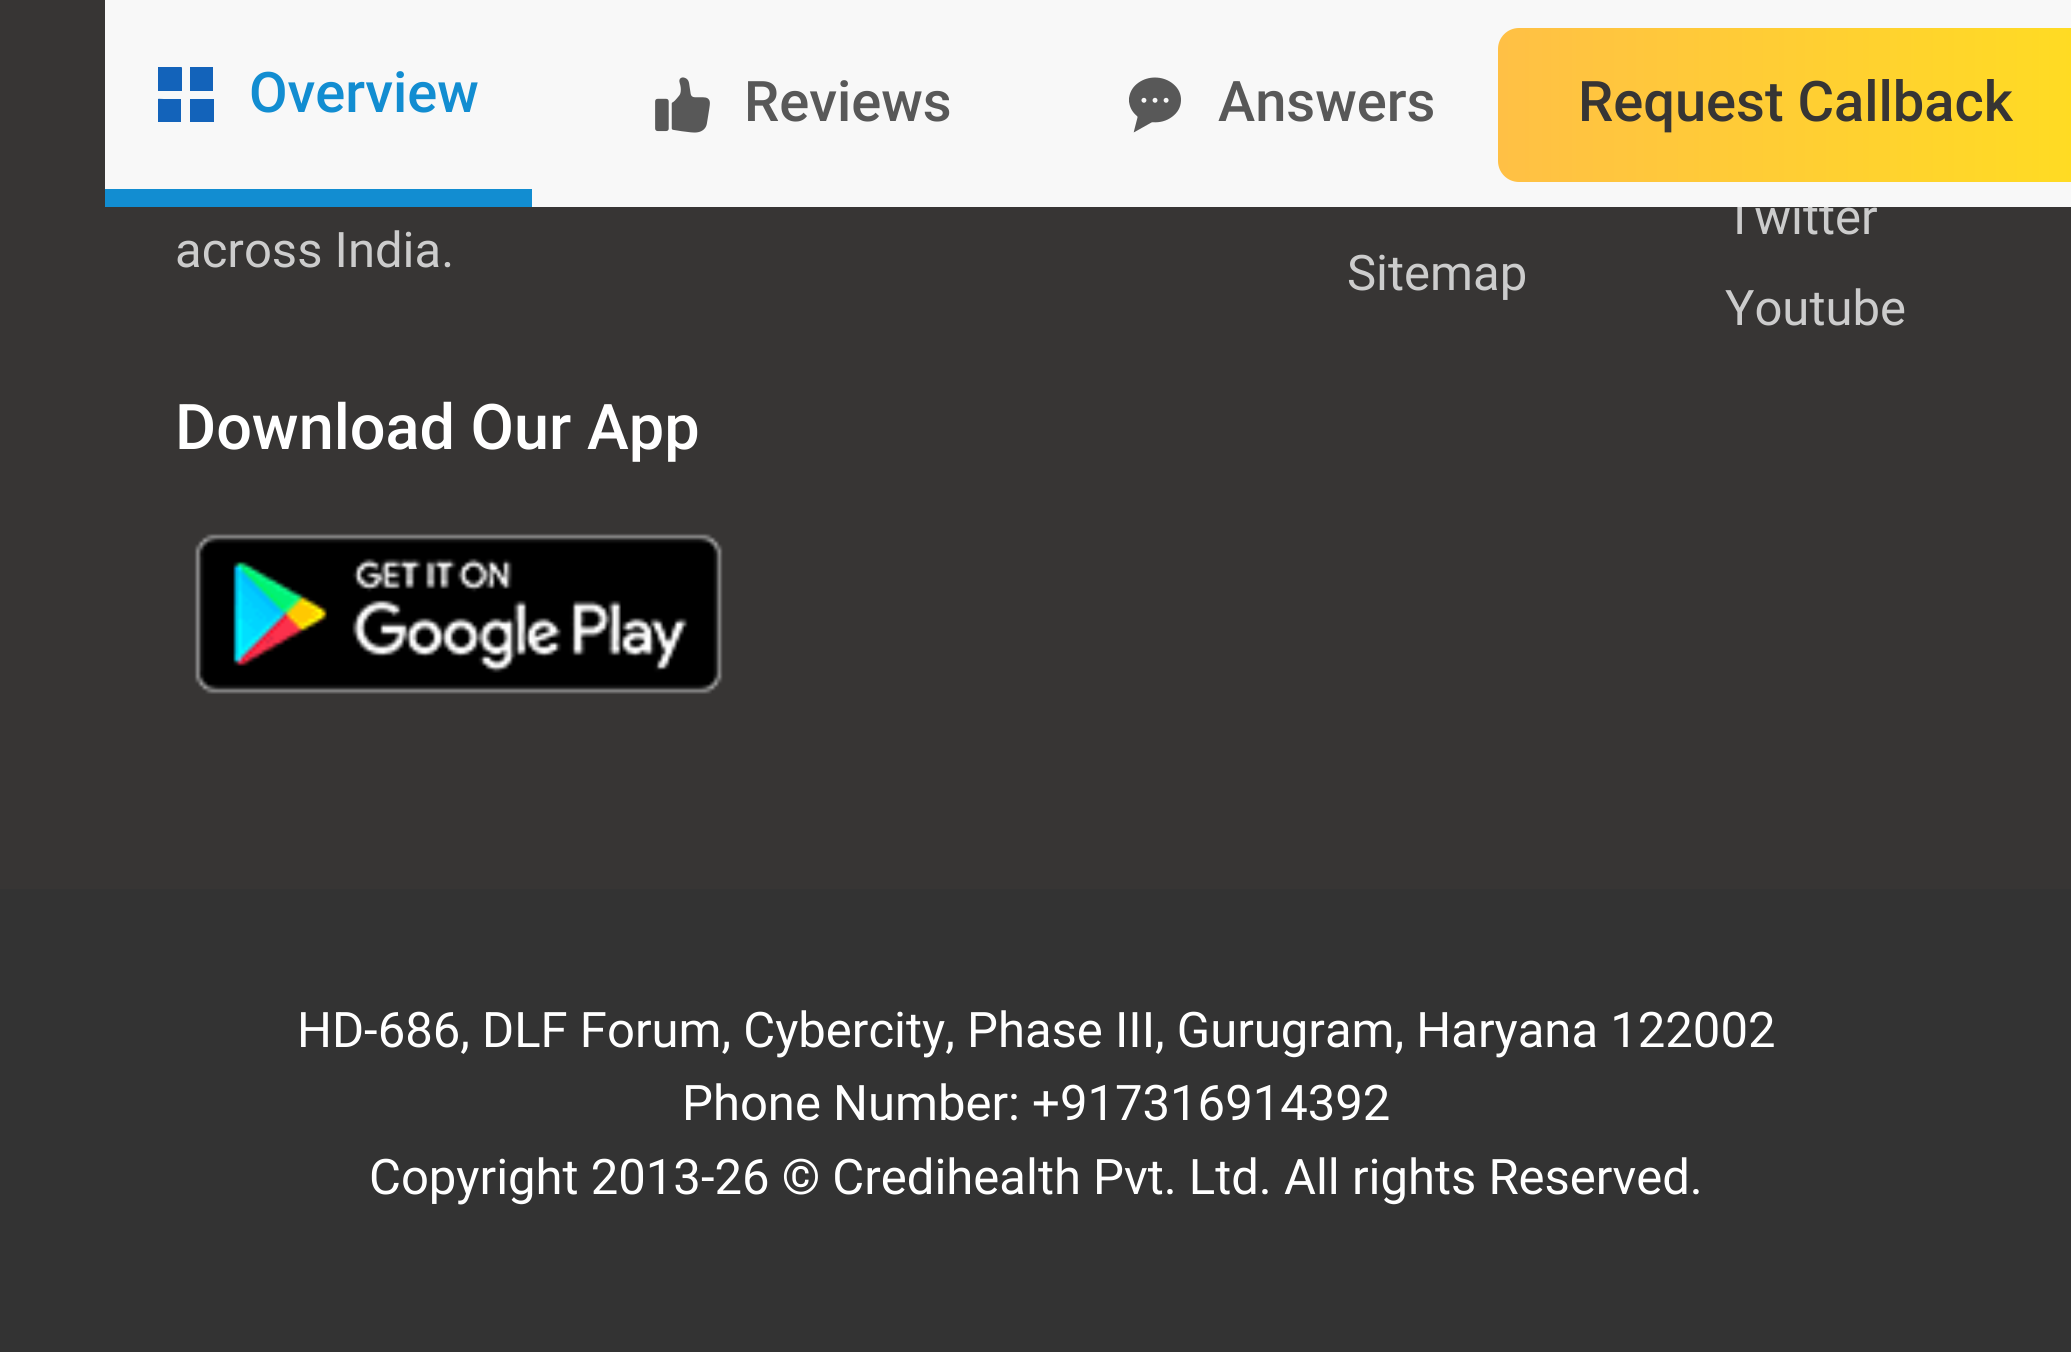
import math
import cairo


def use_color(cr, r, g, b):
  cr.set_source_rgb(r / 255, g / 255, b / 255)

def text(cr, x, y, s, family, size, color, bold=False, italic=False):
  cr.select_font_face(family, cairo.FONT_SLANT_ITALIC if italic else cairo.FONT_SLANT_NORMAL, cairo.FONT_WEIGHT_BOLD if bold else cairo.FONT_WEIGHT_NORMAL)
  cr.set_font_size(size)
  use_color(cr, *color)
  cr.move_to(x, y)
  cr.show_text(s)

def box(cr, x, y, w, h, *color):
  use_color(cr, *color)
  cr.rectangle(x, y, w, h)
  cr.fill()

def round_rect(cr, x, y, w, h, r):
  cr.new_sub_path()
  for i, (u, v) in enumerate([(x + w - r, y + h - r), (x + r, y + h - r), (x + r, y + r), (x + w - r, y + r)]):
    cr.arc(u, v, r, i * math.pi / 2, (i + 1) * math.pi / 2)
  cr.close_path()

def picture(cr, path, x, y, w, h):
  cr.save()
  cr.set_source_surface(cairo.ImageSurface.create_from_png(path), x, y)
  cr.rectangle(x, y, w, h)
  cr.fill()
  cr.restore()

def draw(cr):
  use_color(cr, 55, 53, 52)
  cr.paint()
  picture(cr, "img_03.png", 194, 533, 529, 161)
  box(cr, 0, 889, 2071, 463, 51, 51, 51)
  text(cr, 175, 267, "across India.", "Roboto", 49, (204, 204, 204))
  text(cr, 175, 449, "Download Our App", "Roboto Medium", 63, (255, 255, 255))
  text(cr, 1347, 290, "Sitemap", "Roboto", 49, (204, 204, 204))
  text(cr, 1725, 234, "Twitter", "Roboto", 49, (204, 204, 204))
  box(cr, 105, 0, 1966, 207, 248, 248, 248)
  text(cr, 1218, 121, "Answers", "Roboto Medium", 56, (88, 88, 88))
  picture(cr, "img_02.png", 1129, 77, 52, 56)
  text(cr, 744, 121, "Reviews", "Roboto Medium", 56, (88, 88, 88))
  picture(cr, "img_01.png", 655, 77, 55, 56)
  text(cr, 249, 112, "Overview", "Roboto Medium", 56, (18, 141, 209))
  cr.save()
  cr.rectangle(158, 67, 56, 56)
  cr.clip()
  use_color(cr, 19, 99, 186)
  cr.set_fill_rule(cairo.FILL_RULE_EVEN_ODD)
  cr.new_path()
  cr.move_to(182, 91)
  cr.line_to(158, 91)
  cr.line_to(158, 67)
  cr.line_to(175, 67)
  cr.curve_to(183, 67, 182, 65, 182, 73)
  cr.close_path()
  cr.move_to(190, 67)
  cr.line_to(213, 67)
  cr.line_to(213, 91)
  cr.line_to(190, 91)
  cr.close_path()
  cr.move_to(181, 99)
  cr.line_to(181, 122)
  cr.line_to(158, 122)
  cr.line_to(158, 105)
  cr.curve_to(158, 97, 156, 99, 164, 99)
  cr.close_path()
  cr.move_to(190, 122)
  cr.line_to(190, 99)
  cr.line_to(214, 99)
  cr.line_to(214, 122)
  cr.close_path()
  cr.fill()
  cr.restore()
  box(cr, 105, 189, 427, 18, 18, 141, 209)
  gradient = cairo.LinearGradient(1498, 105, 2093, 105)
  gradient.add_color_stop_rgba(0, 1, 0.753, 0.271, 1)
  gradient.add_color_stop_rgba(1, 1, 0.863, 0.133, 1)
  cr.set_source(gradient)
  round_rect(cr, 1498, 28, 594, 154, 21)
  cr.fill()
  text(cr, 1578, 121, "Request Callback", "Roboto Medium", 56, (55, 53, 52))
  text(cr, 1725, 325, "Youtube", "Roboto", 49, (204, 204, 204))
  text(cr, 297, 1047, "HD-686, DLF Forum, Cybercity, Phase III, Gurugram, Haryana 122002", "Roboto", 49, (255, 255, 255))
  text(cr, 682, 1120, "Phone Number: +917316914392", "Roboto", 49, (255, 255, 255))
  text(cr, 369, 1194, "Copyright 2013-26 © Credihealth Pvt. Ltd. All rights Reserved.", "Roboto", 49, (255, 255, 255))


surface = cairo.ImageSurface(cairo.FORMAT_RGB24, 2071, 1352)
cr = cairo.Context(surface)
options = cairo.FontOptions()
options.set_hint_metrics(cairo.HINT_METRICS_OFF)
options.set_hint_style(cairo.HINT_STYLE_NONE)
cr.set_font_options(options)
cr.set_miter_limit(4)
draw(cr)
surface.write_to_png("out.png")
